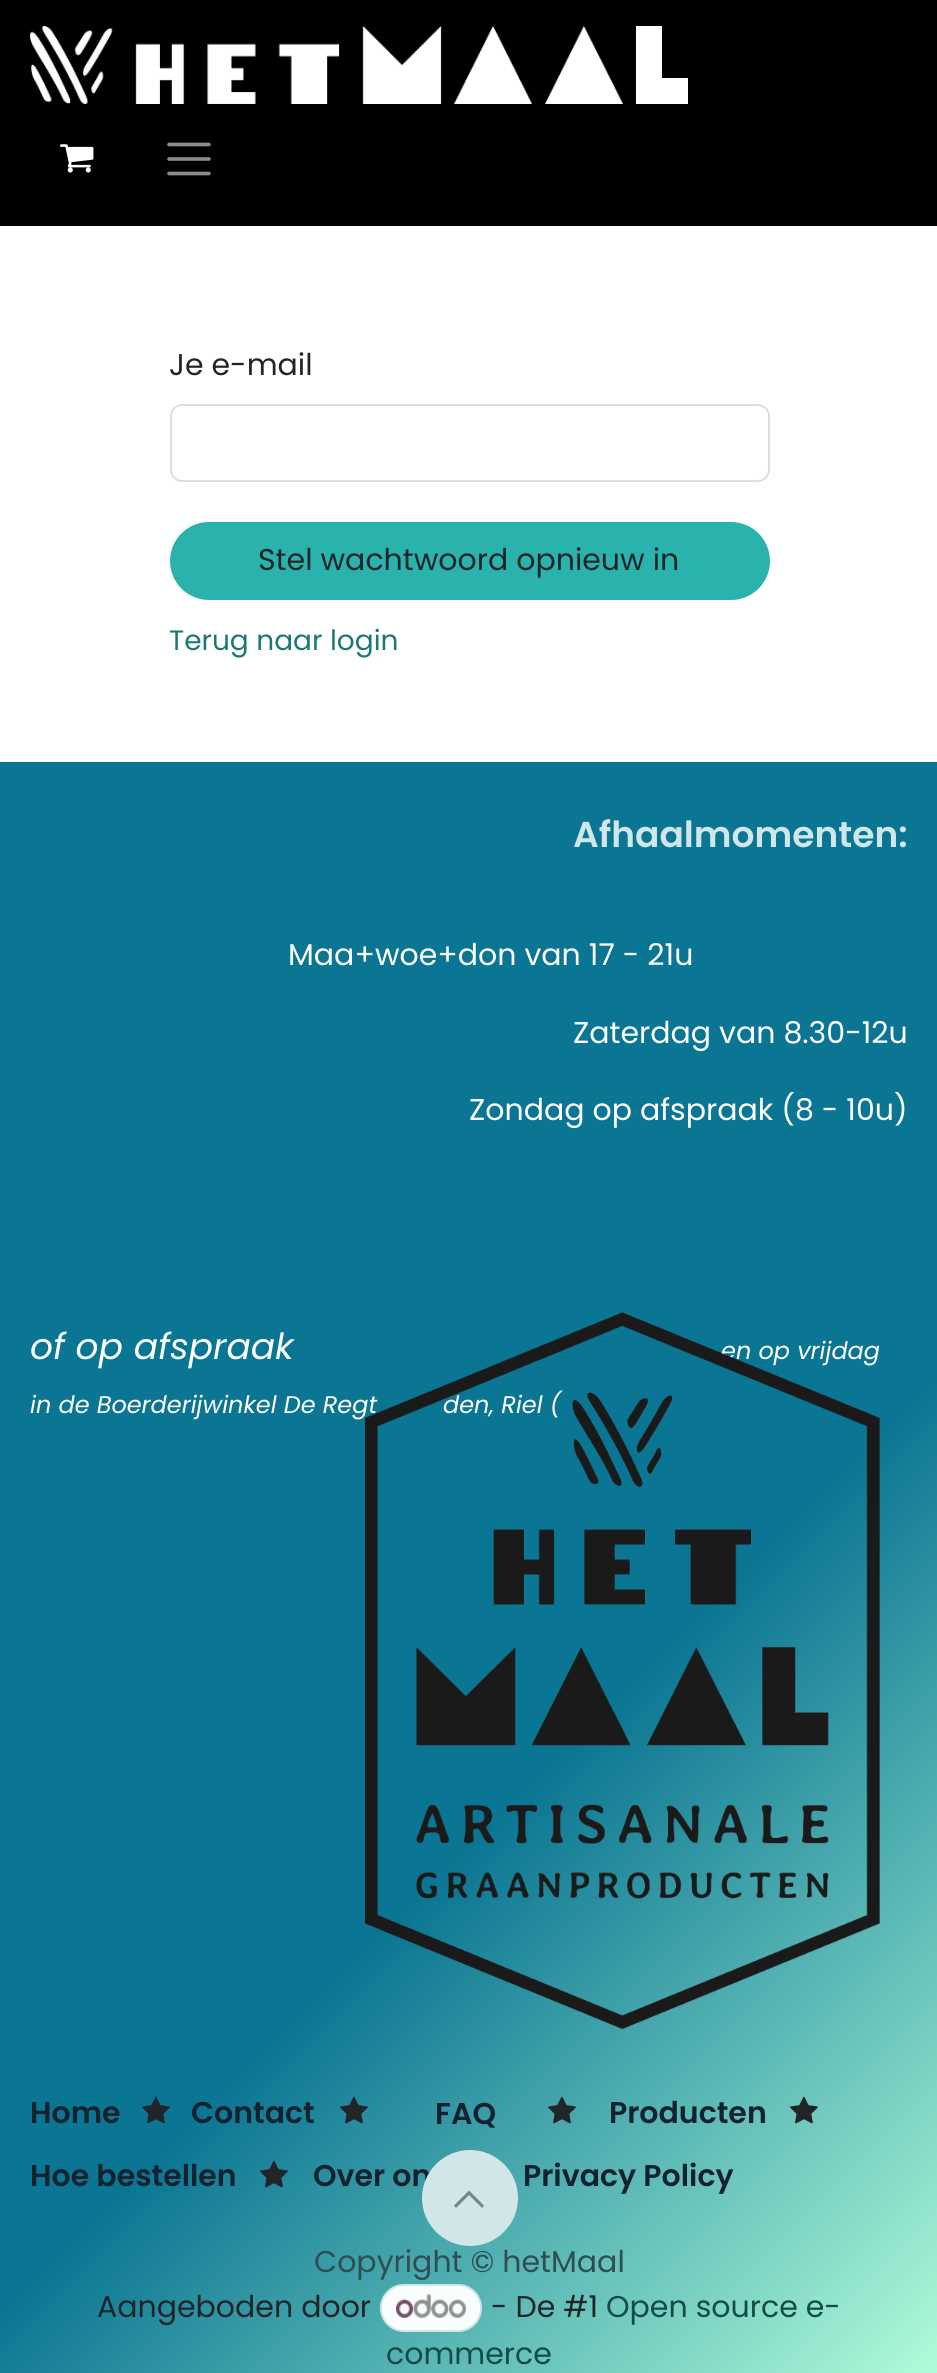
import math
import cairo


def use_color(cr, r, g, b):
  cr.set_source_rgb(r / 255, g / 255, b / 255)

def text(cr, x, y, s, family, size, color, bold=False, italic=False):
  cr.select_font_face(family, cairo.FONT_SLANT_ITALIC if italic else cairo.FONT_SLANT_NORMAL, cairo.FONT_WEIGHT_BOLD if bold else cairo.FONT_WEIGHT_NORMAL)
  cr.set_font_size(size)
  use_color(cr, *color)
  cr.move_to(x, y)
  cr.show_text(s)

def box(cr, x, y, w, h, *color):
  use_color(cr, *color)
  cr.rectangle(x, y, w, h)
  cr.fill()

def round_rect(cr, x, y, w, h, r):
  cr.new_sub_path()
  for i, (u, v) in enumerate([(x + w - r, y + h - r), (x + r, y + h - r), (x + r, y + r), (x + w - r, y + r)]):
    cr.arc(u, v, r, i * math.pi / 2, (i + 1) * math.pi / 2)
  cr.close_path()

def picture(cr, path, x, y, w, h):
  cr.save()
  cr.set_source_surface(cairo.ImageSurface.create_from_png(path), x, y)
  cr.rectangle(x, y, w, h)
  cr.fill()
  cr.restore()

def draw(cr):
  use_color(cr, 255, 255, 255)
  cr.paint()
  box(cr, 0, 0, 937, 226, 0, 0, 0)
  picture(cr, "img_01.png", 30, 26, 658, 78)
  picture(cr, "img_02.png", 60, 144, 34, 29)
  cr.new_path()
  cr.move_to(169, 144.5)
  cr.line_to(209, 144.5)
  cr.move_to(169, 159)
  cr.line_to(209, 159)
  cr.move_to(169, 173.5)
  cr.line_to(209, 173.5)
  use_color(cr, 140, 140, 140)
  cr.set_line_width(3.6)
  cr.set_line_cap(cairo.LINE_CAP_ROUND)
  cr.stroke()
  round_rect(cr, 171, 405, 598, 76, 11)
  use_color(cr, 222, 222, 223)
  cr.set_line_width(2)
  cr.set_line_cap(cairo.LINE_CAP_BUTT)
  cr.stroke()
  use_color(cr, 42, 178, 172)
  round_rect(cr, 171, 523, 598, 76, 38)
  cr.fill_preserve()
  cr.stroke()
  gradient = cairo.LinearGradient(-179, 941, 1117, 2237)
  gradient.add_color_stop_rgba(0.6, 0.043, 0.463, 0.576, 1)
  gradient.add_color_stop_rgba(0.99, 0.698, 1, 0.855, 1)
  cr.set_source(gradient)
  cr.rectangle(0, 762, 937, 1611)
  cr.fill()
  picture(cr, "img_04.png", 142, 2096, 28, 28)
  picture(cr, "img_05.png", 340, 2096, 28, 28)
  picture(cr, "img_06.png", 548, 2096, 28, 28)
  picture(cr, "img_07.png", 790, 2096, 28, 28)
  picture(cr, "img_08.png", 260, 2160, 28, 28)
  use_color(cr, 250, 253, 253)
  round_rect(cr, 381, 2285, 100, 46, 23)
  cr.fill_preserve()
  use_color(cr, 209, 230, 232)
  cr.stroke()
  picture(cr, "img_09.png", 396, 2294, 70, 24)
  text(cr, 169, 375, "Je e-mail", "Poppins", 30, (33, 37, 41))
  text(cr, 258, 570, "Stel wachtwoord opnieuw in", "Poppins", 30, (33, 37, 41))
  text(cr, 169, 650, "Terug naar login", "Poppins", 28, (28, 120, 116))
  text(cr, 573, 847, "Afhaalmomenten:", "Poppins SemiBold", 36, (209, 230, 232))
  text(cr, 288, 965, "Maa+woe+don van 17 - 21u", "Poppins", 30, (255, 255, 255))
  text(cr, 573, 1043, "Zaterdag van 8.30-12u", "Poppins", 30, (255, 255, 255))
  text(cr, 469, 1120, "Zondag op afspraak (8 - 10u)", "Poppins", 30, (255, 255, 255))
  text(cr, 30, 1359, "of op afspraak", "Poppins", 36, (255, 255, 255), italic=True)
  text(cr, 721, 1359, "en op vrijdag", "Poppins", 24, (255, 255, 255), italic=True)
  text(cr, 30, 1413, "in de Boerderijwinkel De Regt", "Poppins", 24, (255, 255, 255), italic=True)
  text(cr, 443, 1413, "den, Riel (", "Poppins", 24, (255, 255, 255), italic=True)
  picture(cr, "img_03.png", 364, 1312, 516, 718)
  text(cr, 30, 2123, "Home", "Poppins SemiBold", 30, (20, 33, 46))
  text(cr, 191, 2123, "Contact", "Poppins SemiBold", 30, (20, 33, 46))
  text(cr, 435, 2124, "FAQ", "Poppins SemiBold", 30, (20, 33, 46))
  text(cr, 609, 2123, "Producten", "Poppins SemiBold", 30, (20, 33, 46))
  text(cr, 30, 2186, "Hoe bestellen", "Poppins SemiBold", 30, (20, 33, 46))
  text(cr, 313, 2186, "Over on", "Poppins SemiBold", 30, (20, 33, 46))
  text(cr, 523, 2186, "Privacy Policy", "Poppins SemiBold", 30, (20, 33, 46))
  use_color(cr, 209, 230, 232)
  cr.new_path()
  cr.arc(470, 2198, 48, 0, 2 * math.pi)
  cr.fill()
  use_color(cr, 121, 134, 137)
  cr.new_path()
  cr.move_to(469, 2190.5)
  cr.line_to(484, 2205.5)
  cr.line_to(482, 2208)
  cr.line_to(469, 2195)
  cr.line_to(456, 2208)
  cr.line_to(454, 2205.5)
  cr.close_path()
  cr.fill()
  text(cr, 314, 2272, "Copyright © hetMaal", "Poppins", 30, (47, 78, 82))
  text(cr, 97, 2317, "Aangeboden door", "Poppins", 30, (33, 37, 41))
  text(cr, 491, 2317, "- De #1", "Poppins", 30, (33, 37, 41))
  text(cr, 606, 2317, "Open source e-", "Poppins", 30, (18, 75, 72))
  text(cr, 386, 2364, "commerce", "Poppins", 30, (18, 75, 72))


surface = cairo.ImageSurface(cairo.FORMAT_RGB24, 937, 2373)
cr = cairo.Context(surface)
options = cairo.FontOptions()
options.set_hint_metrics(cairo.HINT_METRICS_OFF)
options.set_hint_style(cairo.HINT_STYLE_NONE)
cr.set_font_options(options)
cr.set_miter_limit(4)
draw(cr)
surface.write_to_png("out.png")
